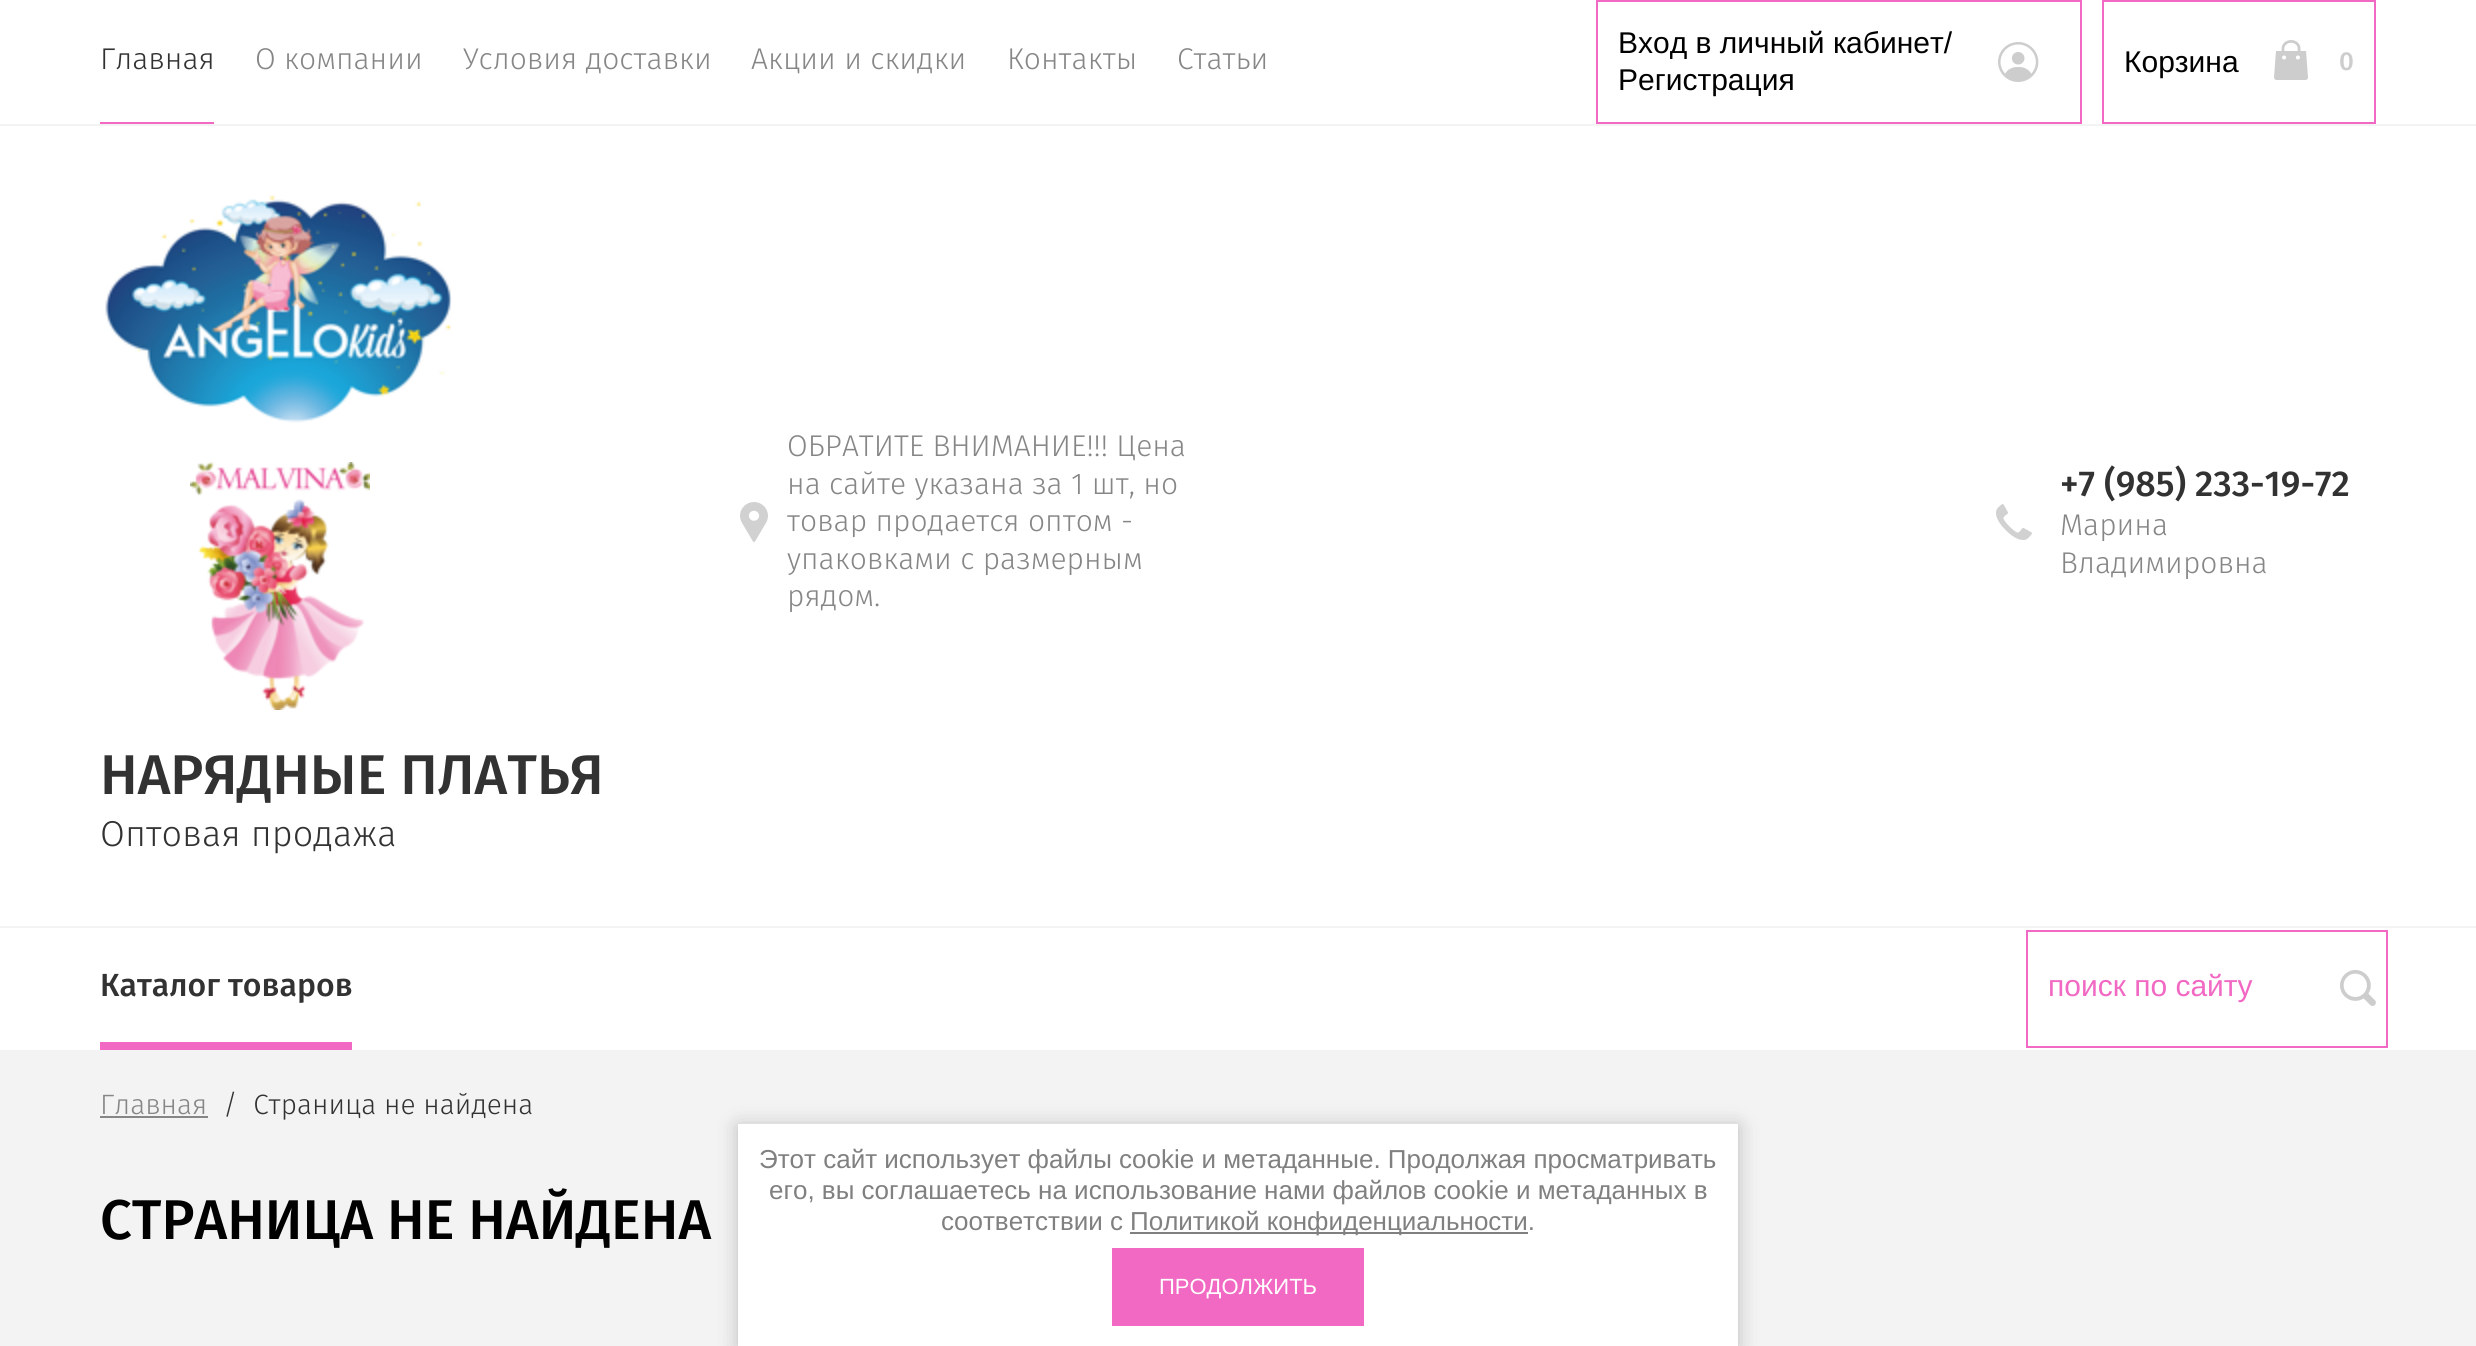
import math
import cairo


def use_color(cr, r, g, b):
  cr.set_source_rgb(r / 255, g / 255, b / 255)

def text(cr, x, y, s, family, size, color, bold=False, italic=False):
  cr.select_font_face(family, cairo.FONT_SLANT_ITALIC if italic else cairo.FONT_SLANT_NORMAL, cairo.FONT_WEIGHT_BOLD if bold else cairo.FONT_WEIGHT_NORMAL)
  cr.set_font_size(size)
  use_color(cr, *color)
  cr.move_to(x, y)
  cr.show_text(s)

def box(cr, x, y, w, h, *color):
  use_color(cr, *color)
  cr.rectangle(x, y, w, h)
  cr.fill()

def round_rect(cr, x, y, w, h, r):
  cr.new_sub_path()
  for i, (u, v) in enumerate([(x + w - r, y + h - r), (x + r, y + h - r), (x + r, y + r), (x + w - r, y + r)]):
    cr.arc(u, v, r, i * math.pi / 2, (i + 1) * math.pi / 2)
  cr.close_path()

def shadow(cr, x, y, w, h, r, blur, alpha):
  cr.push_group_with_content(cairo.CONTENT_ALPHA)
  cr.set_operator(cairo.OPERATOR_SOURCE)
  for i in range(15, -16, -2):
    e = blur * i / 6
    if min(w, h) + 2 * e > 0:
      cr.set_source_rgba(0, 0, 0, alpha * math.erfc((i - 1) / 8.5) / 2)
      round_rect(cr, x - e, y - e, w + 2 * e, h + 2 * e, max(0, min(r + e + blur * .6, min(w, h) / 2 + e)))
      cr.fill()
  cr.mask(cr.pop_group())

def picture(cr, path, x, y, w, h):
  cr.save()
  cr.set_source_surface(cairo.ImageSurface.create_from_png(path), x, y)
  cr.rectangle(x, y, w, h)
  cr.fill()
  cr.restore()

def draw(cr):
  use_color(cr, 243, 243, 243)
  cr.paint()
  box(cr, 0, 0, 2476, 1050, 255, 255, 255)
  box(cr, 100, 122, 114, 2, 241, 105, 195)
  cr.rectangle(1597, 1, 484, 122)
  cr.stroke()
  picture(cr, "img_01.png", 1998, 42, 41, 40)
  cr.rectangle(2103, 1, 272, 122)
  cr.stroke()
  picture(cr, "img_02.png", 2274, 40, 34, 40)
  box(cr, 0, 124, 2476, 2, 243, 243, 243)
  picture(cr, "img_03.png", 740, 502, 28, 40)
  picture(cr, "img_04.png", 1996, 504, 36, 36)
  picture(cr, "img_05.png", 105, 195, 347, 228)
  picture(cr, "img_06.png", 190, 462, 180, 248)
  box(cr, 0, 926, 2476, 2, 243, 243, 243)
  box(cr, 100, 1042, 252, 8, 241, 105, 195)
  picture(cr, "img_07.png", 2340, 970, 36, 36)
  cr.rectangle(2027, 931, 360, 116)
  cr.stroke()
  box(cr, 100, 1116, 108, 2, 134, 134, 134)
  use_color(cr, 0, 0, 0)
  shadow(cr, 738, 1126, 1000, 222, 0, 10, 0.23)
  box(cr, 738, 1124, 1000, 222, 255, 255, 255)
  box(cr, 1130, 1232, 398, 2, 128, 128, 128)
  box(cr, 1112, 1248, 252, 78, 241, 105, 195)
  text(cr, 100, 69, "Главная", "Fira Sans Light", 30, (50, 50, 50))
  text(cr, 255, 69, "О компании", "Fira Sans Light", 30, (134, 134, 134))
  text(cr, 463, 69, "Условия доставки", "Fira Sans Light", 30, (134, 134, 134))
  text(cr, 751, 69, "Акции и скидки", "Fira Sans Light", 30, (134, 134, 134))
  text(cr, 1007, 69, "Контакты", "Fira Sans Light", 30, (134, 134, 134))
  text(cr, 1177, 69, "Статьи", "Fira Sans Light", 30, (134, 134, 134))
  text(cr, 1618, 53, "Вход в личный кабинет/", "Liberation Sans", 30, (0, 0, 0))
  text(cr, 1618, 90, "Регистрация", "Liberation Sans", 30, (0, 0, 0))
  text(cr, 2124, 72, "Корзина", "Liberation Sans", 30, (0, 0, 0))
  text(cr, 2339, 70, "0", "Fira Sans Medium", 26, (205, 205, 205))
  text(cr, 787, 456, "ОБРАТИТЕ ВНИМАНИЕ!!! Цена", "Fira Sans Light", 30, (134, 134, 134))
  text(cr, 787, 494, "на сайте указана за 1 шт, но", "Fira Sans Light", 30, (134, 134, 134))
  text(cr, 787, 531, "товар продается оптом -", "Fira Sans Light", 30, (134, 134, 134))
  text(cr, 787, 569, "упаковками с размерным", "Fira Sans Light", 30, (134, 134, 134))
  text(cr, 787, 606, "рядом.", "Fira Sans Light", 30, (134, 134, 134))
  text(cr, 2060, 496, "+7 (985) 233-19-72", "Fira Sans Medium", 36, (50, 50, 50))
  text(cr, 2060, 535, "Марина", "Fira Sans Light", 30, (134, 134, 134))
  text(cr, 2060, 573, "Владимировна", "Fira Sans Light", 30, (134, 134, 134))
  text(cr, 100, 794, "НАРЯДНЫЕ ПЛАТЬЯ", "Fira Sans Medium", 56, (50, 50, 50))
  text(cr, 100, 846, "Оптовая продажа", "Fira Sans Light", 36, (50, 50, 50))
  text(cr, 100, 996, "Каталог товаров", "Fira Sans Medium", 32, (50, 50, 50))
  text(cr, 2048, 996, "поиск по сайту", "Liberation Sans", 30, (241, 105, 195))
  text(cr, 100, 1114, "Главная", "Fira Sans Light", 28, (134, 134, 134))
  text(cr, 223, 1114, "/  Страница не найдена", "Fira Sans Light", 28, (50, 50, 50))
  text(cr, 100, 1239, "СТРАНИЦА НЕ НАЙДЕНА", "Fira Sans Medium", 56, (0, 0, 0))
  text(cr, 759, 1168, "Этот сайт использует файлы cookie и метаданные. Продолжая просматривать", "Liberation Sans", 26, (128, 128, 128))
  text(cr, 769, 1199, "его, вы соглашаетесь на использование нами файлов cookie и метаданных в", "Liberation Sans", 26, (128, 128, 128))
  text(cr, 941, 1230, "соответствии с", "Liberation Sans", 26, (128, 128, 128))
  text(cr, 1130, 1230, "Политикой конфиденциальности.", "Liberation Sans", 26, (128, 128, 128))
  text(cr, 1159, 1294, "ПРОДОЛЖИТЬ", "Liberation Sans", 22, (255, 255, 255))


surface = cairo.ImageSurface(cairo.FORMAT_RGB24, 2476, 1346)
cr = cairo.Context(surface)
options = cairo.FontOptions()
options.set_hint_metrics(cairo.HINT_METRICS_OFF)
options.set_hint_style(cairo.HINT_STYLE_NONE)
cr.set_font_options(options)
cr.set_miter_limit(4)
draw(cr)
surface.write_to_png("out.png")
